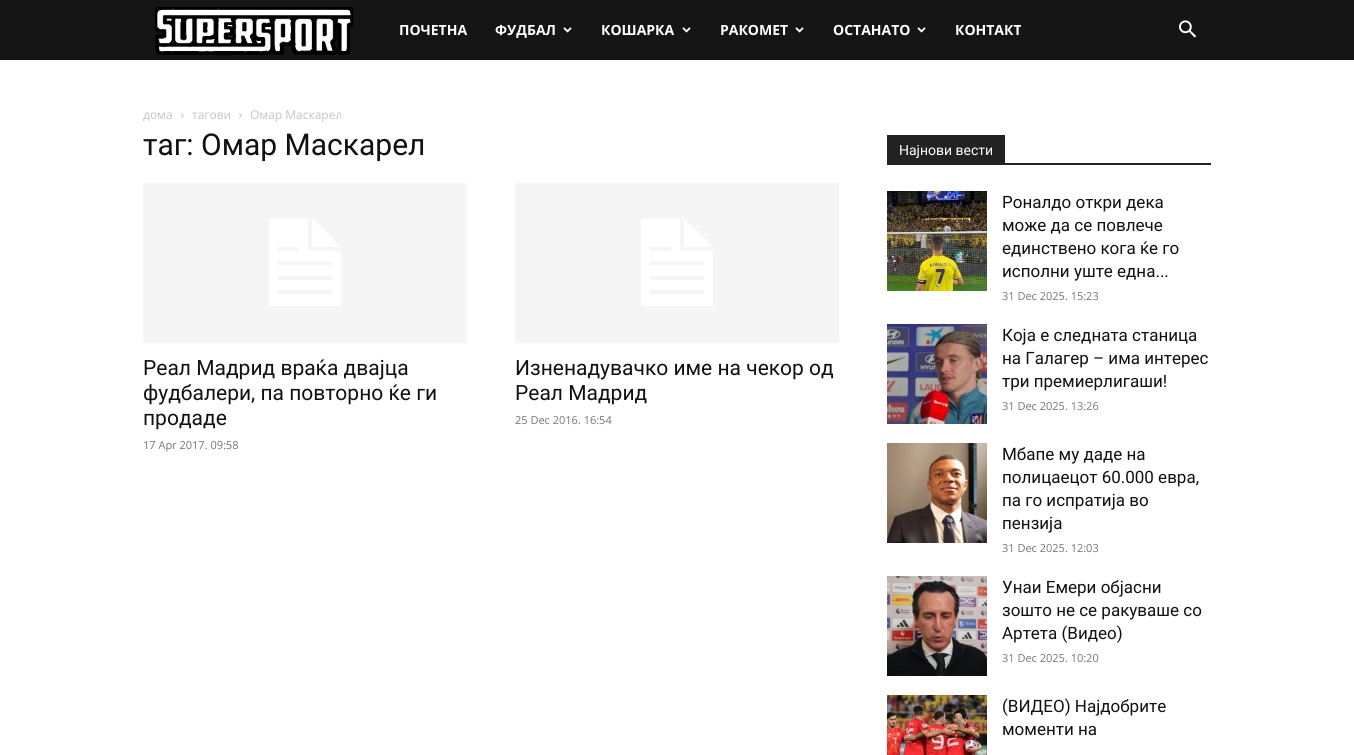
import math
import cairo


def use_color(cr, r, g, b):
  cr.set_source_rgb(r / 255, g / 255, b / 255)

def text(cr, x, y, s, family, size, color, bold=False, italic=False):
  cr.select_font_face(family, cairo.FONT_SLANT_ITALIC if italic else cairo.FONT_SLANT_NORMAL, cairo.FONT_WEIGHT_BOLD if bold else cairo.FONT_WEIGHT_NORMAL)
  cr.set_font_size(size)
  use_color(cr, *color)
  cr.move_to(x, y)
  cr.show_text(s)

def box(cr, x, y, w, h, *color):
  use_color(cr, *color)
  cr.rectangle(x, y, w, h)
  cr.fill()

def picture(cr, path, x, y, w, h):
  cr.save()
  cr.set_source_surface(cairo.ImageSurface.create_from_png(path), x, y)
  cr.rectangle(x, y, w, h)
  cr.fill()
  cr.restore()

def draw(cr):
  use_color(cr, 255, 255, 255)
  cr.paint()
  box(cr, 0, 0, 1354, 60, 21, 21, 21)
  picture(cr, "img_01.png", 155, 7, 199, 48)
  picture(cr, "img_02.png", 563, 27, 9, 6)
  picture(cr, "img_02.png", 682, 27, 9, 6)
  picture(cr, "img_02.png", 795, 27, 9, 6)
  picture(cr, "img_02.png", 917, 27, 9, 6)
  picture(cr, "img_03.png", 1179, 20, 17, 18)
  picture(cr, "img_04.png", 181, 113, 3, 5)
  picture(cr, "img_04.png", 239, 113, 3, 5)
  picture(cr, "img_05.png", 143, 183, 324, 160)
  picture(cr, "img_05.png", 515, 183, 324, 160)
  box(cr, 887, 163, 324, 2, 34, 34, 34)
  box(cr, 887, 135, 118, 28, 34, 34, 34)
  picture(cr, "img_06.png", 887, 191, 100, 100)
  picture(cr, "img_07.png", 887, 324, 100, 100)
  picture(cr, "img_08.png", 887, 443, 100, 100)
  picture(cr, "img_09.png", 887, 576, 100, 100)
  picture(cr, "img_10.png", 887, 695, 100, 60)
  text(cr, 399, 35, "ПОЧЕТНА", "Open Sans", 14, (255, 255, 255), bold=True)
  text(cr, 495, 35, "ФУДБАЛ", "Open Sans", 14, (255, 255, 255), bold=True)
  text(cr, 601, 35, "КОШАРКА", "Open Sans", 14, (255, 255, 255), bold=True)
  text(cr, 720, 35, "РАКОМЕТ", "Open Sans", 14, (255, 255, 255), bold=True)
  text(cr, 833, 35, "ОСТАНАТО", "Open Sans", 14, (255, 255, 255), bold=True)
  text(cr, 955, 35, "КОНТАКТ", "Open Sans", 14, (255, 255, 255), bold=True)
  text(cr, 143, 119, "дома", "Open Sans", 12, (195, 195, 195))
  text(cr, 192, 119, "тагови", "Open Sans", 12, (195, 195, 195))
  text(cr, 250, 119, "Омар Маскарел", "Open Sans", 12, (195, 195, 195))
  text(cr, 143, 155, "таг: Омар Маскарел", "Roboto", 30, (17, 17, 17))
  text(cr, 143, 375, "Реал Мадрид враќа двајца", "Roboto", 21, (17, 17, 17))
  text(cr, 143, 400, "фудбалери, па повторно ќе ги", "Roboto", 21, (17, 17, 17))
  text(cr, 143, 425, "продаде", "Roboto", 21, (17, 17, 17))
  text(cr, 143, 449, "17 Apr 2017. 09:58", "Open Sans", 11, (118, 118, 118))
  text(cr, 515, 375, "Изненадувачко име на чекор од", "Roboto", 21, (17, 17, 17))
  text(cr, 515, 400, "Реал Мадрид", "Roboto", 21, (17, 17, 17))
  text(cr, 515, 424, "25 Dec 2016. 16:54", "Open Sans", 11, (118, 118, 118))
  text(cr, 899, 155, "Најнови вести", "Roboto", 14, (255, 255, 255))
  text(cr, 1002, 208, "Роналдо откри дека", "Roboto", 17, (17, 17, 17))
  text(cr, 1002, 231, "може да се повлече", "Roboto", 17, (17, 17, 17))
  text(cr, 1002, 254, "единствено кога ќе го", "Roboto", 17, (17, 17, 17))
  text(cr, 1002, 277, "исполни уште една...", "Roboto", 17, (17, 17, 17))
  text(cr, 1002, 300, "31 Dec 2025. 15:23", "Open Sans", 11, (118, 118, 118))
  text(cr, 1002, 341, "Која е следната станица", "Roboto", 17, (17, 17, 17))
  text(cr, 1002, 364, "на Галагер – има интерес", "Roboto", 17, (17, 17, 17))
  text(cr, 1002, 387, "три премиерлигаши!", "Roboto", 17, (17, 17, 17))
  text(cr, 1002, 410, "31 Dec 2025. 13:26", "Open Sans", 11, (118, 118, 118))
  text(cr, 1002, 460, "Мбапе му даде на", "Roboto", 17, (17, 17, 17))
  text(cr, 1002, 483, "полицаецот 60.000 евра,", "Roboto", 17, (17, 17, 17))
  text(cr, 1002, 506, "па го испратија во", "Roboto", 17, (17, 17, 17))
  text(cr, 1002, 529, "пензија", "Roboto", 17, (17, 17, 17))
  text(cr, 1002, 552, "31 Dec 2025. 12:03", "Open Sans", 11, (118, 118, 118))
  text(cr, 1002, 593, "Унаи Емери објасни", "Roboto", 17, (17, 17, 17))
  text(cr, 1002, 616, "зошто не се ракуваше со", "Roboto", 17, (17, 17, 17))
  text(cr, 1002, 639, "Артета (Видео)", "Roboto", 17, (17, 17, 17))
  text(cr, 1002, 662, "31 Dec 2025. 10:20", "Open Sans", 11, (118, 118, 118))
  text(cr, 1002, 712, "(ВИДЕО) Најдобрите", "Roboto", 17, (17, 17, 17))
  text(cr, 1002, 735, "моменти на", "Roboto", 17, (17, 17, 17))


surface = cairo.ImageSurface(cairo.FORMAT_RGB24, 1354, 755)
cr = cairo.Context(surface)
options = cairo.FontOptions()
options.set_hint_metrics(cairo.HINT_METRICS_OFF)
options.set_hint_style(cairo.HINT_STYLE_NONE)
cr.set_font_options(options)
cr.set_miter_limit(4)
draw(cr)
surface.write_to_png("out.png")
